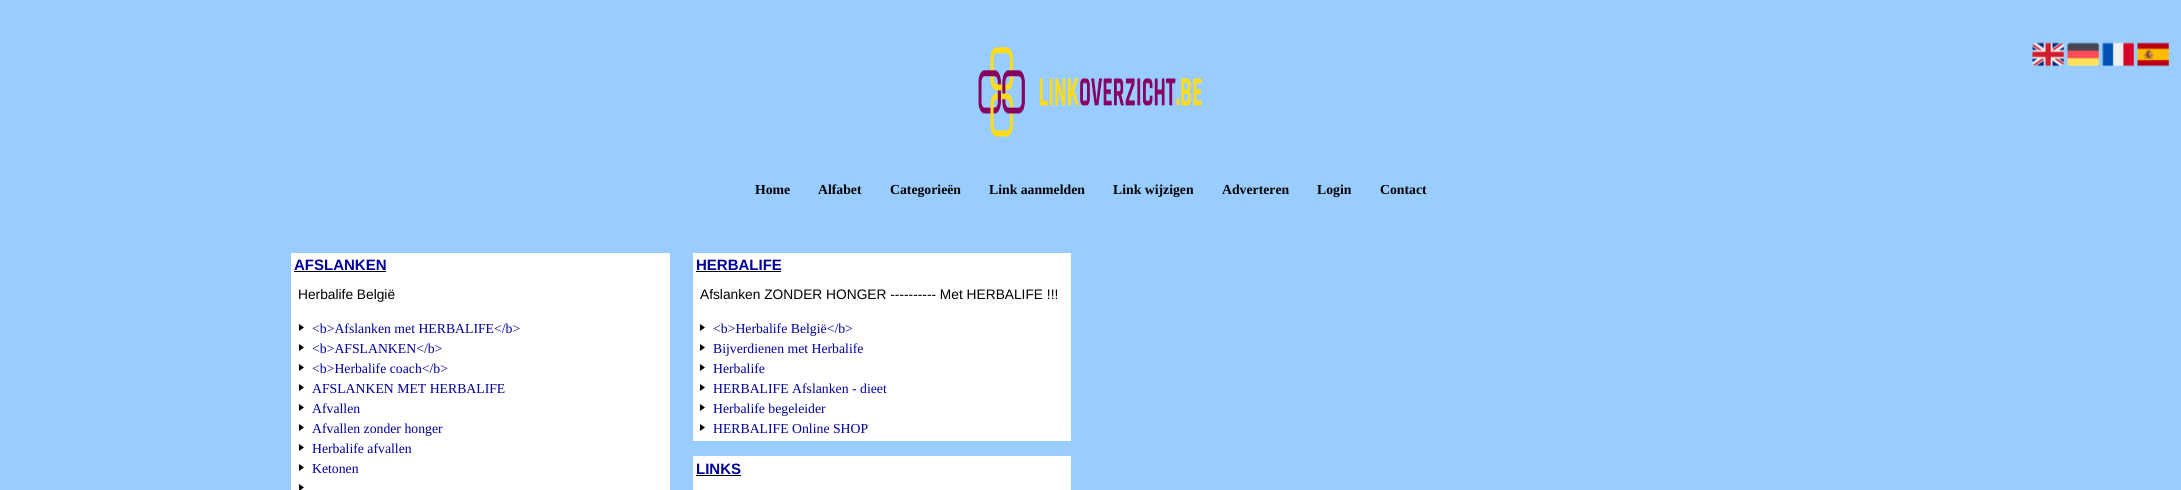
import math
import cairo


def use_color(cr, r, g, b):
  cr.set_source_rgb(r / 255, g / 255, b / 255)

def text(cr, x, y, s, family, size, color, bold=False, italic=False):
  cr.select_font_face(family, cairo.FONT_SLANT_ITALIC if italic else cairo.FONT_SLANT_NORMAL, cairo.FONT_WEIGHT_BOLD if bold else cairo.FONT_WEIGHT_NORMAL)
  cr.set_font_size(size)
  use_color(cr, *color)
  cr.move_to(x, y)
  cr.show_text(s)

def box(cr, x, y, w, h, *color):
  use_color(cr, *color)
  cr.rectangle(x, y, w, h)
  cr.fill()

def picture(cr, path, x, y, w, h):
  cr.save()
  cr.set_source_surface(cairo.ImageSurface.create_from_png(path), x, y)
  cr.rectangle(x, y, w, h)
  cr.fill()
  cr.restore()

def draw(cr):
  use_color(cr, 153, 204, 255)
  cr.paint()
  picture(cr, "img_01.png", 978, 46, 224, 91)
  picture(cr, "img_02.png", 2032, 42, 32, 25)
  picture(cr, "img_03.png", 2067, 42, 32, 25)
  picture(cr, "img_04.png", 2102, 42, 32, 25)
  picture(cr, "img_05.png", 2137, 42, 32, 25)
  box(cr, 291, 253, 379, 237, 255, 255, 255)
  box(cr, 294, 271, 92, 1, 0, 0, 0)
  cr.new_path()
  cr.move_to(299, 331)
  cr.line_to(299, 324)
  cr.line_to(304, 327.5)
  cr.close_path()
  cr.fill()
  cr.new_path()
  cr.move_to(299, 351)
  cr.line_to(299, 344)
  cr.line_to(304, 347.5)
  cr.close_path()
  cr.fill()
  cr.new_path()
  cr.move_to(299, 371)
  cr.line_to(299, 364)
  cr.line_to(304, 367.5)
  cr.close_path()
  cr.fill()
  cr.new_path()
  cr.move_to(299, 391)
  cr.line_to(299, 384)
  cr.line_to(304, 387.5)
  cr.close_path()
  cr.fill()
  cr.new_path()
  cr.move_to(299, 411)
  cr.line_to(299, 404)
  cr.line_to(304, 407.5)
  cr.close_path()
  cr.fill()
  cr.new_path()
  cr.move_to(299, 431)
  cr.line_to(299, 424)
  cr.line_to(304, 427.5)
  cr.close_path()
  cr.fill()
  cr.new_path()
  cr.move_to(299, 451)
  cr.line_to(299, 444)
  cr.line_to(304, 447.5)
  cr.close_path()
  cr.fill()
  cr.new_path()
  cr.move_to(299, 471)
  cr.line_to(299, 464)
  cr.line_to(304, 467.5)
  cr.close_path()
  cr.fill()
  cr.new_path()
  cr.move_to(299, 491)
  cr.line_to(299, 484)
  cr.line_to(304, 487.5)
  cr.close_path()
  cr.fill()
  box(cr, 693, 253, 378, 188, 255, 255, 255)
  box(cr, 696, 271, 85, 1, 0, 0, 0)
  cr.new_path()
  cr.move_to(700, 331)
  cr.line_to(700, 324)
  cr.line_to(705, 327.5)
  cr.close_path()
  cr.fill()
  cr.new_path()
  cr.move_to(700, 351)
  cr.line_to(700, 344)
  cr.line_to(705, 347.5)
  cr.close_path()
  cr.fill()
  cr.new_path()
  cr.move_to(700, 371)
  cr.line_to(700, 364)
  cr.line_to(705, 367.5)
  cr.close_path()
  cr.fill()
  cr.new_path()
  cr.move_to(700, 391)
  cr.line_to(700, 384)
  cr.line_to(705, 387.5)
  cr.close_path()
  cr.fill()
  cr.new_path()
  cr.move_to(700, 411)
  cr.line_to(700, 404)
  cr.line_to(705, 407.5)
  cr.close_path()
  cr.fill()
  cr.new_path()
  cr.move_to(700, 431)
  cr.line_to(700, 424)
  cr.line_to(705, 427.5)
  cr.close_path()
  cr.fill()
  box(cr, 693, 456, 378, 34, 255, 255, 255)
  box(cr, 696, 475, 45, 1, 0, 0, 0)
  text(cr, 755, 194, "Home", "Liberation Serif", 13.75, (0, 0, 0), bold=True)
  text(cr, 818, 194, "Alfabet", "Liberation Serif", 13.75, (0, 0, 0), bold=True)
  text(cr, 890, 194, "Categorieën", "Liberation Serif", 13.75, (0, 0, 0), bold=True)
  text(cr, 989, 194, "Link aanmelden", "Liberation Serif", 13.75, (0, 0, 0), bold=True)
  text(cr, 1113, 194, "Link wijzigen", "Liberation Serif", 13.75, (0, 0, 0), bold=True)
  text(cr, 1222, 194, "Adverteren", "Liberation Serif", 13.75, (0, 0, 0), bold=True)
  text(cr, 1317, 194, "Login", "Liberation Serif", 13.75, (0, 0, 0), bold=True)
  text(cr, 1380, 194, "Contact", "Liberation Serif", 13.75, (0, 0, 0), bold=True)
  text(cr, 294, 270, "AFSLANKEN", "Liberation Sans", 15, (0, 0, 153), bold=True)
  text(cr, 298, 299, "Herbalife België", "Liberation Sans", 13.75, (0, 0, 0))
  text(cr, 312, 333, "<b>Afslanken met HERBALIFE</b>", "Liberation Serif", 13.75, (0, 0, 153))
  text(cr, 312, 353, "<b>AFSLANKEN</b>", "Liberation Serif", 13.75, (0, 0, 153))
  text(cr, 312, 373, "<b>Herbalife coach</b>", "Liberation Serif", 13.75, (0, 0, 153))
  text(cr, 312, 393, "AFSLANKEN MET HERBALIFE", "Liberation Serif", 13.75, (0, 0, 153))
  text(cr, 312, 413, "Afvallen", "Liberation Serif", 13.75, (0, 0, 153))
  text(cr, 312, 433, "Afvallen zonder honger", "Liberation Serif", 13.75, (0, 0, 153))
  text(cr, 312, 453, "Herbalife afvallen", "Liberation Serif", 13.75, (0, 0, 153))
  text(cr, 312, 473, "Ketonen", "Liberation Serif", 13.75, (0, 0, 153))
  text(cr, 696, 270, "HERBALIFE", "Liberation Sans", 15, (0, 0, 153), bold=True)
  text(cr, 700, 299, "Afslanken ZONDER HONGER ---------- Met HERBALIFE !!!", "Liberation Sans", 13.75, (0, 0, 0))
  text(cr, 713, 333, "<b>Herbalife België</b>", "Liberation Serif", 13.75, (0, 0, 153))
  text(cr, 713, 353, "Bijverdienen met Herbalife", "Liberation Serif", 13.75, (0, 0, 153))
  text(cr, 713, 373, "Herbalife", "Liberation Serif", 13.75, (0, 0, 153))
  text(cr, 713, 393, "HERBALIFE Afslanken - dieet", "Liberation Serif", 13.75, (0, 0, 153))
  text(cr, 713, 413, "Herbalife begeleider", "Liberation Serif", 13.75, (0, 0, 153))
  text(cr, 713, 433, "HERBALIFE Online SHOP", "Liberation Serif", 13.75, (0, 0, 153))
  text(cr, 696, 474, "LINKS", "Liberation Sans", 15, (0, 0, 153), bold=True)


surface = cairo.ImageSurface(cairo.FORMAT_RGB24, 2181, 490)
cr = cairo.Context(surface)
options = cairo.FontOptions()
options.set_hint_metrics(cairo.HINT_METRICS_OFF)
options.set_hint_style(cairo.HINT_STYLE_NONE)
cr.set_font_options(options)
cr.set_miter_limit(4)
draw(cr)
surface.write_to_png("out.png")
